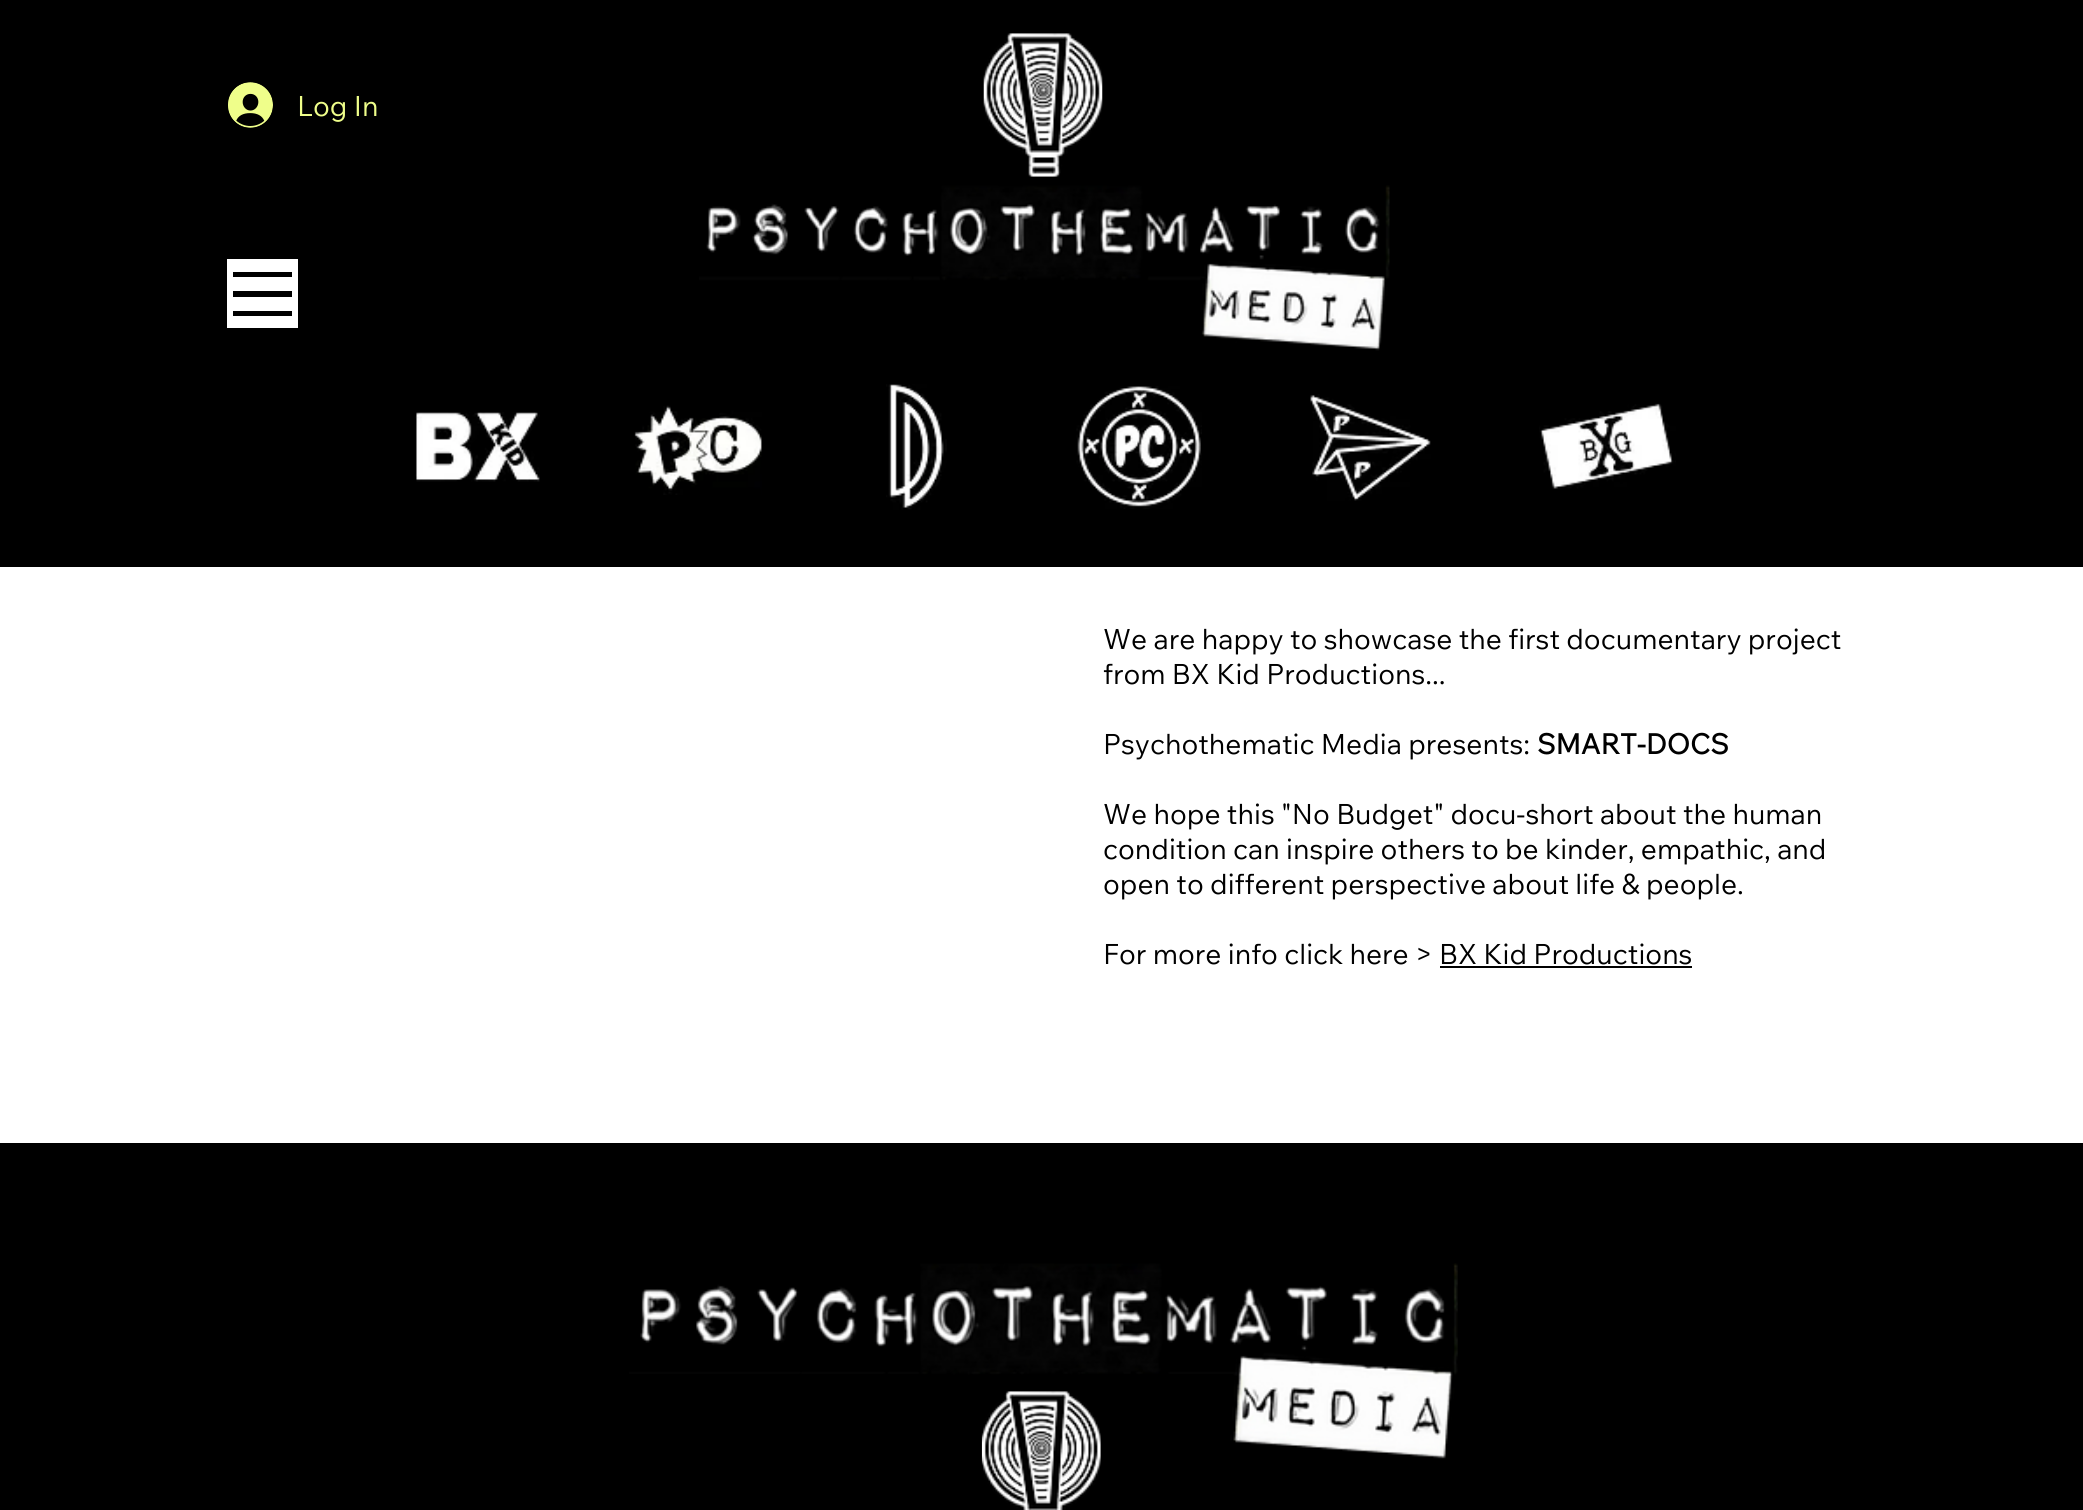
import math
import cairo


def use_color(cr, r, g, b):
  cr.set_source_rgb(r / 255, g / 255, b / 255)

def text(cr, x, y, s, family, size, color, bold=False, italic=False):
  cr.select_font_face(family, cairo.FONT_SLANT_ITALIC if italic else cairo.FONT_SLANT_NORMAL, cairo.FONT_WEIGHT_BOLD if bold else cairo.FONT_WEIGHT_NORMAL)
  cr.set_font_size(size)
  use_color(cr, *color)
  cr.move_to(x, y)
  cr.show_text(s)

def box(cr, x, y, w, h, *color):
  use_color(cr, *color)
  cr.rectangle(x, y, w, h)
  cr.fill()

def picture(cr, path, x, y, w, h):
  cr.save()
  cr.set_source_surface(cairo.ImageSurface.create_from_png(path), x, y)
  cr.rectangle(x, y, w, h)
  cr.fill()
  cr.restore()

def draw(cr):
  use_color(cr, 0, 0, 0)
  cr.paint()
  picture(cr, "img_01.png", 228, 82, 45, 46)
  picture(cr, "img_02.png", 983, 33, 120, 144)
  box(cr, 227, 259, 71, 69, 255, 255, 255)
  picture(cr, "img_03.png", 699, 185, 691, 166)
  box(cr, 233, 311, 59, 5, 0, 0, 0)
  box(cr, 233, 272, 59, 5, 0, 0, 0)
  box(cr, 233, 291, 59, 6, 0, 0, 0)
  picture(cr, "img_04.png", 415, 412, 125, 70)
  picture(cr, "img_05.png", 634, 405, 128, 90)
  picture(cr, "img_06.png", 886, 384, 61, 126)
  picture(cr, "img_07.png", 1076, 386, 126, 123)
  picture(cr, "img_08.png", 1310, 394, 121, 107)
  picture(cr, "img_09.png", 1539, 403, 137, 86)
  box(cr, 0, 567, 2083, 576, 255, 255, 255)
  box(cr, 1440, 966, 252, 2, 0, 0, 0)
  picture(cr, "img_10.png", 629, 1263, 829, 196)
  picture(cr, "img_11.png", 981, 1391, 120, 119)
  text(cr, 297, 116, "Log In", "Wix Madefor Text", 28, (239, 254, 138))
  text(cr, 1103, 649, "We are happy to showcase the first documentary project", "Wix Madefor Text", 28, (0, 0, 0))
  text(cr, 1103, 684, "from BX Kid Productions...", "Wix Madefor Text", 28, (0, 0, 0))
  text(cr, 1103, 754, "Psychothematic Media presents:", "Wix Madefor Text", 28, (0, 0, 0))
  text(cr, 1537, 754, "SMART-DOCS", "Wix Madefor Text", 28, (0, 0, 0), bold=True)
  text(cr, 1103, 824, "We hope this \"No Budget\" docu-short about the human", "Wix Madefor Text", 28, (0, 0, 0))
  text(cr, 1103, 859, "condition can inspire others to be kinder, empathic, and", "Wix Madefor Text", 28, (0, 0, 0))
  text(cr, 1103, 894, "open to different perspective about life & people.", "Wix Madefor Text", 28, (0, 0, 0))
  text(cr, 1103, 964, "For more info click here > BX Kid Productions", "Wix Madefor Text", 28, (0, 0, 0))


surface = cairo.ImageSurface(cairo.FORMAT_RGB24, 2083, 1510)
cr = cairo.Context(surface)
options = cairo.FontOptions()
options.set_hint_metrics(cairo.HINT_METRICS_OFF)
options.set_hint_style(cairo.HINT_STYLE_NONE)
cr.set_font_options(options)
cr.set_miter_limit(4)
draw(cr)
surface.write_to_png("out.png")
